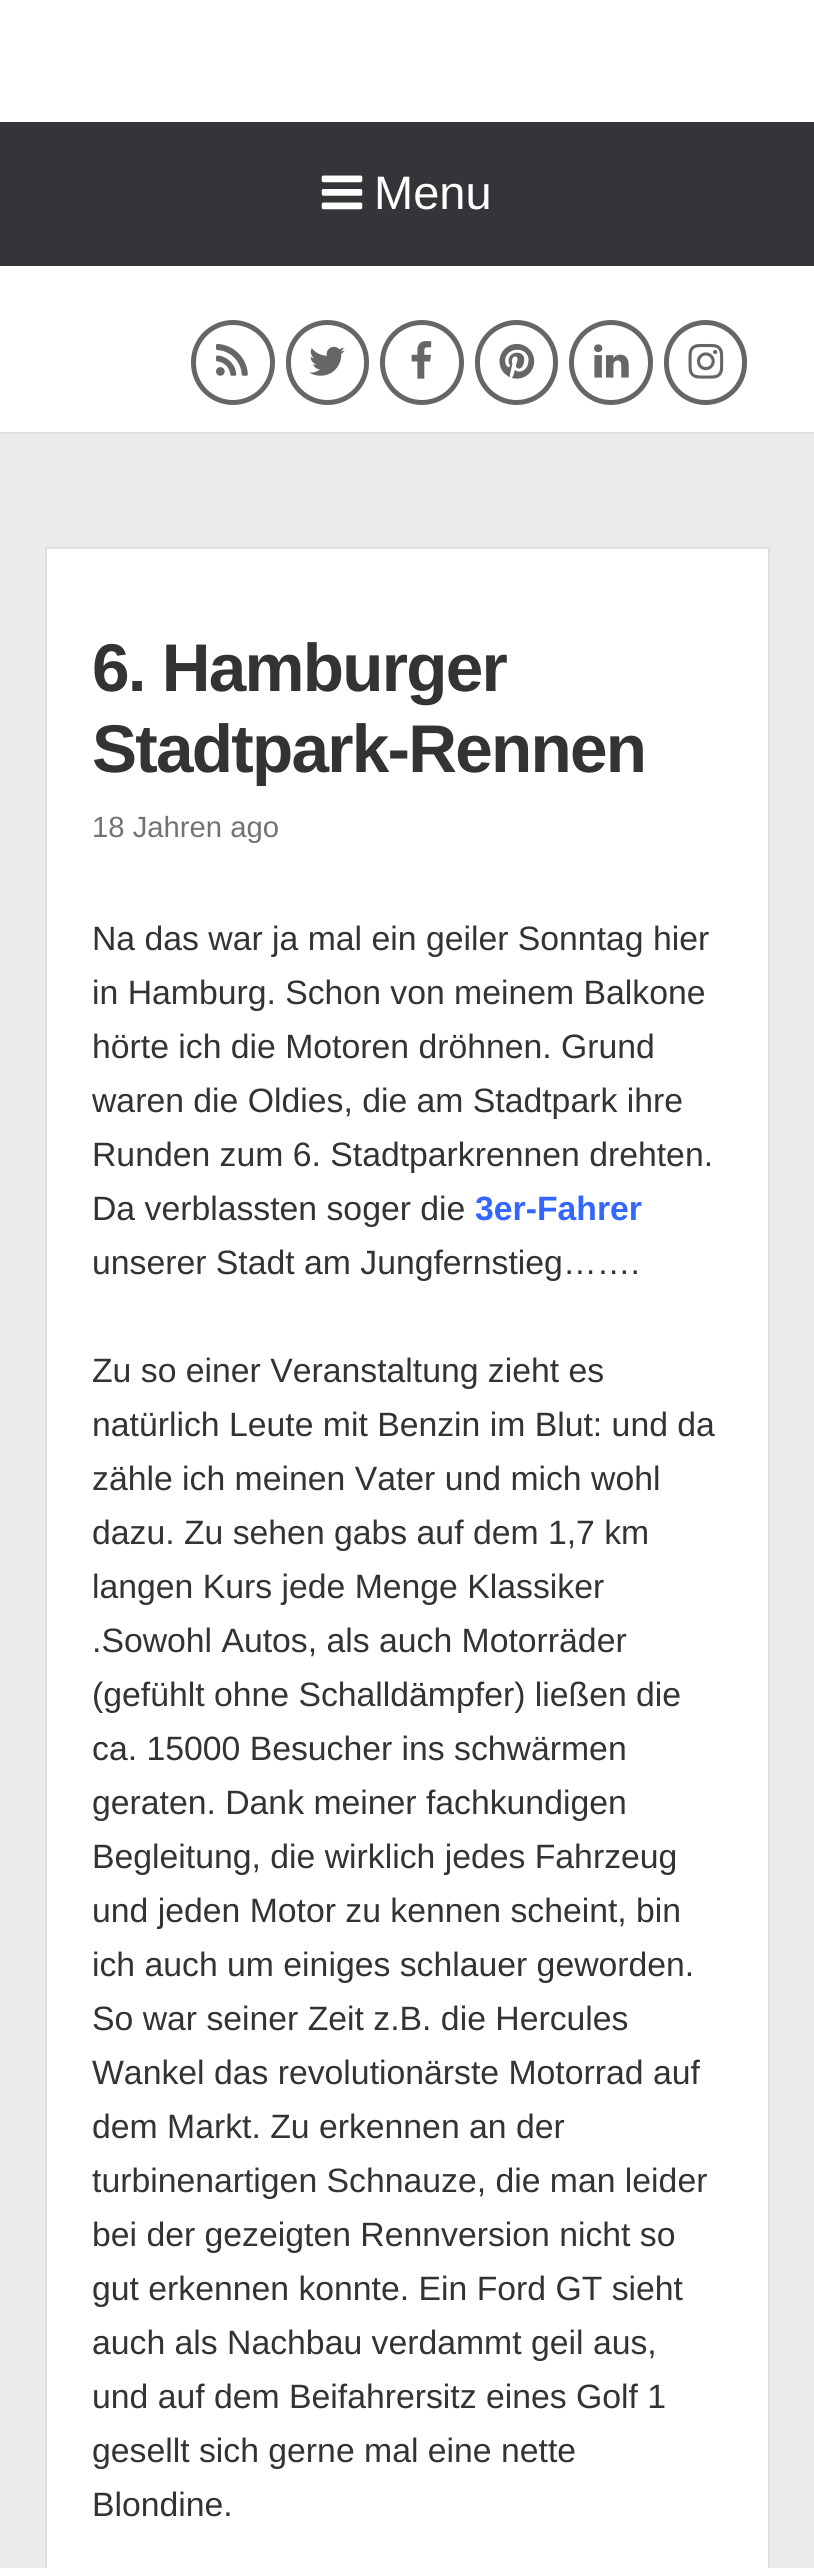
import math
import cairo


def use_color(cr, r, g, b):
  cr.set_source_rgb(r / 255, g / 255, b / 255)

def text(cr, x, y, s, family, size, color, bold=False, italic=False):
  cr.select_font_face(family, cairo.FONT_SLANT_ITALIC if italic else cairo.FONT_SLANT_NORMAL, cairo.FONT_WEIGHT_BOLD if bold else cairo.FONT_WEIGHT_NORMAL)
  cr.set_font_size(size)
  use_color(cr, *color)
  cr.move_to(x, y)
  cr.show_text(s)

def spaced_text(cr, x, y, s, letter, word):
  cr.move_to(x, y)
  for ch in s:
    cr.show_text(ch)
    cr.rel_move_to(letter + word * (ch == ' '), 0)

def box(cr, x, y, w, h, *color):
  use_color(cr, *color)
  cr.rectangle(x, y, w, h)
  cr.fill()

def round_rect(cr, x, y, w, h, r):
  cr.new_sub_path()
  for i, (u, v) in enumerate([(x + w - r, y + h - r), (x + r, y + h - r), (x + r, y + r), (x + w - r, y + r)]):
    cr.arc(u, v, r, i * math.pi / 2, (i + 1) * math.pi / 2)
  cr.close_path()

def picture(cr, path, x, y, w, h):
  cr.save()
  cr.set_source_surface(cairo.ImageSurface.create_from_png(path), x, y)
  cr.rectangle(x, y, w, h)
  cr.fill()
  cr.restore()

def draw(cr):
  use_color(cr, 234, 235, 237)
  cr.paint()
  box(cr, 0, 0, 814, 432, 255, 255, 255)
  box(cr, 0, 122, 814, 144, 51, 53, 56)
  picture(cr, "img_01.png", 321, 175, 42, 35)
  box(cr, 0, 432, 814, 2, 223, 223, 223)
  round_rect(cr, 193.5, 322.5, 79, 80, 39.5)
  use_color(cr, 102, 102, 102)
  cr.set_line_width(5)
  cr.stroke()
  picture(cr, "img_02.png", 216, 343, 32, 33)
  round_rect(cr, 288.5, 322.5, 78, 80, 39)
  cr.stroke()
  picture(cr, "img_03.png", 309, 346, 36, 30)
  round_rect(cr, 382.5, 322.5, 79, 80, 39.5)
  cr.stroke()
  picture(cr, "img_04.png", 411, 341, 21, 38)
  round_rect(cr, 477.5, 322.5, 78, 80, 39)
  cr.stroke()
  picture(cr, "img_05.png", 499, 343, 36, 36)
  round_rect(cr, 571.5, 322.5, 79, 80, 39.5)
  cr.stroke()
  picture(cr, "img_06.png", 594, 344, 35, 34)
  round_rect(cr, 666.5, 322.5, 78, 80, 39)
  cr.stroke()
  picture(cr, "img_07.png", 688, 343, 36, 36)
  use_color(cr, 255, 255, 255)
  cr.rectangle(46, 548, 723, 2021)
  cr.fill_preserve()
  use_color(cr, 223, 223, 223)
  cr.set_line_width(2)
  cr.stroke()
  text(cr, 374, 209, "Menu", "Liberation Sans", 47, (255, 255, 255))
  cr.select_font_face("Liberation Sans", cairo.FONT_SLANT_NORMAL, cairo.FONT_WEIGHT_BOLD)
  cr.set_font_size(67.5)
  use_color(cr, 51, 51, 51)
  spaced_text(cr, 92, 691, "6. Hamburger", -1.75, 0)
  spaced_text(cr, 92, 772, "Stadtpark-Rennen", -1.75, 0)
  text(cr, 92, 837, "18 Jahren ago", "Liberation Sans", 29.25, (115, 115, 115))
  text(cr, 92, 950, "Na das war ja mal ein geiler Sonntag hier", "Liberation Sans", 33.75, (51, 51, 51))
  text(cr, 92, 1004, "in Hamburg. Schon von meinem Balkone", "Liberation Sans", 33.75, (51, 51, 51))
  text(cr, 92, 1058, "hörte ich die Motoren dröhnen. Grund", "Liberation Sans", 33.75, (51, 51, 51))
  text(cr, 92, 1112, "waren die Oldies, die am Stadtpark ihre", "Liberation Sans", 33.75, (51, 51, 51))
  text(cr, 92, 1166, "Runden zum 6. Stadtparkrennen drehten.", "Liberation Sans", 33.75, (51, 51, 51))
  text(cr, 92, 1220, "Da verblassten soger die", "Liberation Sans", 33.75, (51, 51, 51))
  text(cr, 475, 1220, "3er-Fahrer", "Liberation Sans", 33.75, (51, 102, 255), bold=True)
  text(cr, 92, 1274, "unserer Stadt am Jungfernstieg…….", "Liberation Sans", 33.75, (51, 51, 51))
  text(cr, 92, 1382, "Zu so einer Veranstaltung zieht es", "Liberation Sans", 33.75, (51, 51, 51))
  text(cr, 92, 1436, "natürlich Leute mit Benzin im Blut: und da", "Liberation Sans", 33.75, (51, 51, 51))
  text(cr, 92, 1490, "zähle ich meinen Vater und mich wohl", "Liberation Sans", 33.75, (51, 51, 51))
  text(cr, 92, 1544, "dazu. Zu sehen gabs auf dem 1,7 km", "Liberation Sans", 33.75, (51, 51, 51))
  text(cr, 92, 1598, "langen Kurs jede Menge Klassiker", "Liberation Sans", 33.75, (51, 51, 51))
  text(cr, 92, 1652, ".Sowohl Autos, als auch Motorräder", "Liberation Sans", 33.75, (51, 51, 51))
  text(cr, 92, 1706, "(gefühlt ohne Schalldämpfer) ließen die", "Liberation Sans", 33.75, (51, 51, 51))
  text(cr, 92, 1760, "ca. 15000 Besucher ins schwärmen", "Liberation Sans", 33.75, (51, 51, 51))
  text(cr, 92, 1814, "geraten. Dank meiner fachkundigen", "Liberation Sans", 33.75, (51, 51, 51))
  text(cr, 92, 1868, "Begleitung, die wirklich jedes Fahrzeug", "Liberation Sans", 33.75, (51, 51, 51))
  text(cr, 92, 1922, "und jeden Motor zu kennen scheint, bin", "Liberation Sans", 33.75, (51, 51, 51))
  text(cr, 92, 1976, "ich auch um einiges schlauer geworden.", "Liberation Sans", 33.75, (51, 51, 51))
  text(cr, 92, 2030, "So war seiner Zeit z.B. die Hercules", "Liberation Sans", 33.75, (51, 51, 51))
  text(cr, 92, 2084, "Wankel das revolutionärste Motorrad auf", "Liberation Sans", 33.75, (51, 51, 51))
  text(cr, 92, 2138, "dem Markt. Zu erkennen an der", "Liberation Sans", 33.75, (51, 51, 51))
  text(cr, 92, 2192, "turbinenartigen Schnauze, die man leider", "Liberation Sans", 33.75, (51, 51, 51))
  text(cr, 92, 2246, "bei der gezeigten Rennversion nicht so", "Liberation Sans", 33.75, (51, 51, 51))
  text(cr, 92, 2300, "gut erkennen konnte. Ein Ford GT sieht", "Liberation Sans", 33.75, (51, 51, 51))
  text(cr, 92, 2354, "auch als Nachbau verdammt geil aus,", "Liberation Sans", 33.75, (51, 51, 51))
  text(cr, 92, 2408, "und auf dem Beifahrersitz eines Golf 1", "Liberation Sans", 33.75, (51, 51, 51))
  text(cr, 92, 2462, "gesellt sich gerne mal eine nette", "Liberation Sans", 33.75, (51, 51, 51))
  text(cr, 92, 2516, "Blondine.", "Liberation Sans", 33.75, (51, 51, 51))


surface = cairo.ImageSurface(cairo.FORMAT_RGB24, 814, 2568)
cr = cairo.Context(surface)
options = cairo.FontOptions()
options.set_hint_metrics(cairo.HINT_METRICS_OFF)
options.set_hint_style(cairo.HINT_STYLE_NONE)
cr.set_font_options(options)
cr.set_miter_limit(4)
draw(cr)
surface.write_to_png("out.png")
